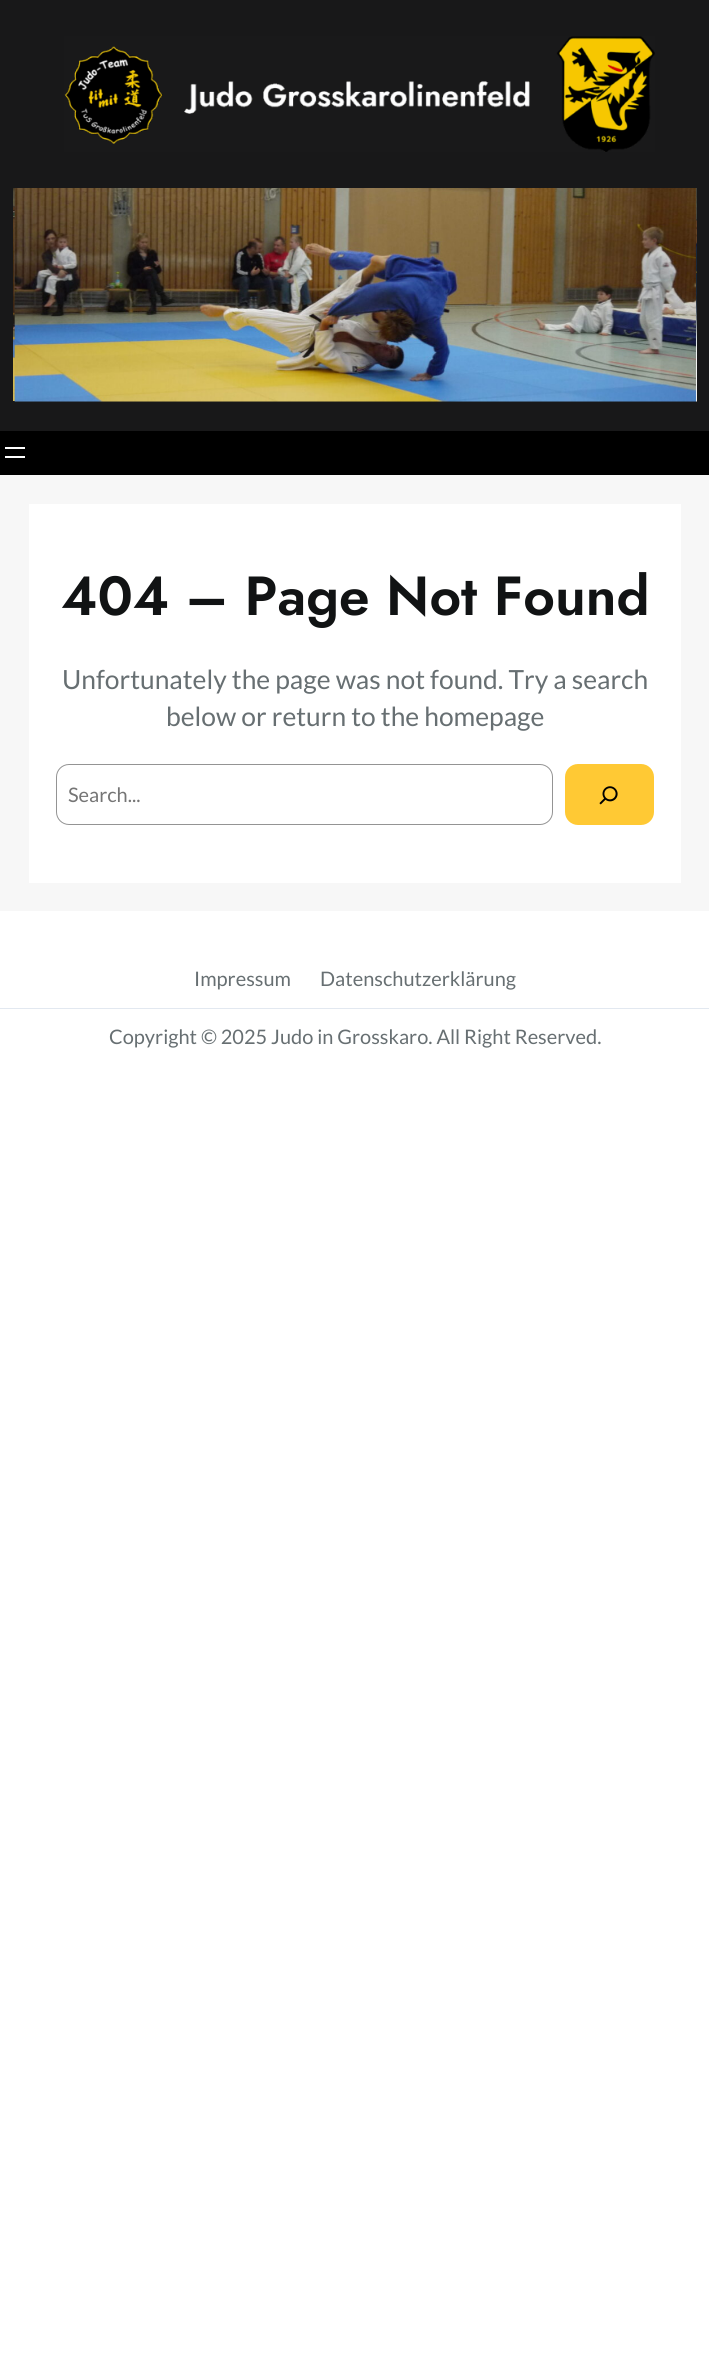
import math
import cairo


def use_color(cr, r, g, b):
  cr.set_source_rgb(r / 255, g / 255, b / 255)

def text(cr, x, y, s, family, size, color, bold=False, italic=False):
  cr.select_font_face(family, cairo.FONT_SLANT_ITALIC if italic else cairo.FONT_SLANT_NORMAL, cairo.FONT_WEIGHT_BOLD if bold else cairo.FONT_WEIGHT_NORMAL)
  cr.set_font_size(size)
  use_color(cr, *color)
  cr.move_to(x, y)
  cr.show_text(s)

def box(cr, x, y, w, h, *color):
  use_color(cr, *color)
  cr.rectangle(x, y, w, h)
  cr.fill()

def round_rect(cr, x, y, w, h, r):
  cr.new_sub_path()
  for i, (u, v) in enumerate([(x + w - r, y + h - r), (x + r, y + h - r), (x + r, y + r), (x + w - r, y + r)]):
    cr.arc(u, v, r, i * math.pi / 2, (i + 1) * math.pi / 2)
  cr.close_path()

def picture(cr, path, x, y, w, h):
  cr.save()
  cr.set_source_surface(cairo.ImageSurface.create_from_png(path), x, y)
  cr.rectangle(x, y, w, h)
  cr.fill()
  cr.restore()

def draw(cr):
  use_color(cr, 255, 255, 255)
  cr.paint()
  box(cr, 0, 0, 709, 431, 24, 24, 25)
  picture(cr, "img_01.png", 64, 36, 591, 116)
  picture(cr, "img_02.png", 13, 188, 2, 213)
  picture(cr, "img_03.png", 14, 188, 682, 214)
  picture(cr, "img_04.png", 696, 188, 1, 214)
  box(cr, 0, 431, 709, 44, 0, 0, 0)
  box(cr, 5, 447, 20, 2, 255, 255, 255)
  box(cr, 5, 456, 20, 2, 255, 255, 255)
  box(cr, 0, 475, 709, 436, 247, 247, 247)
  box(cr, 29, 504, 652, 379, 255, 255, 255)
  round_rect(cr, 56.5, 764.5, 496, 60, 12.5)
  use_color(cr, 148, 148, 148)
  cr.set_line_width(1)
  cr.stroke()
  use_color(cr, 255, 201, 52)
  round_rect(cr, 565, 764, 89, 61, 13)
  cr.fill()
  picture(cr, "img_05.png", 599, 786, 19, 19)
  box(cr, 0, 1008, 709, 1, 226, 232, 240)
  text(cr, 61, 615, "404 – Page Not Found", "Jost SemiBold", 55, (17, 19, 20))
  text(cr, 62, 689, "Unfortunately the page was not found. Try a search", "Lato", 26.4, (103, 111, 114))
  text(cr, 166, 726, "below or return to the homepage", "Lato", 26.4, (103, 111, 114))
  text(cr, 68, 802, "Search...", "Lato", 20, (117, 117, 117))
  text(cr, 194, 986, "Impressum", "Lato", 20, (103, 111, 114))
  text(cr, 320, 986, "Datenschutzerklärung", "Lato", 20, (103, 111, 114))
  text(cr, 109, 1044, "Copyright © 2025 Judo in Grosskaro. All Right Reserved.", "Lato", 20, (103, 111, 114))


surface = cairo.ImageSurface(cairo.FORMAT_RGB24, 709, 2380)
cr = cairo.Context(surface)
options = cairo.FontOptions()
options.set_hint_metrics(cairo.HINT_METRICS_OFF)
options.set_hint_style(cairo.HINT_STYLE_NONE)
cr.set_font_options(options)
cr.set_miter_limit(4)
draw(cr)
surface.write_to_png("out.png")
